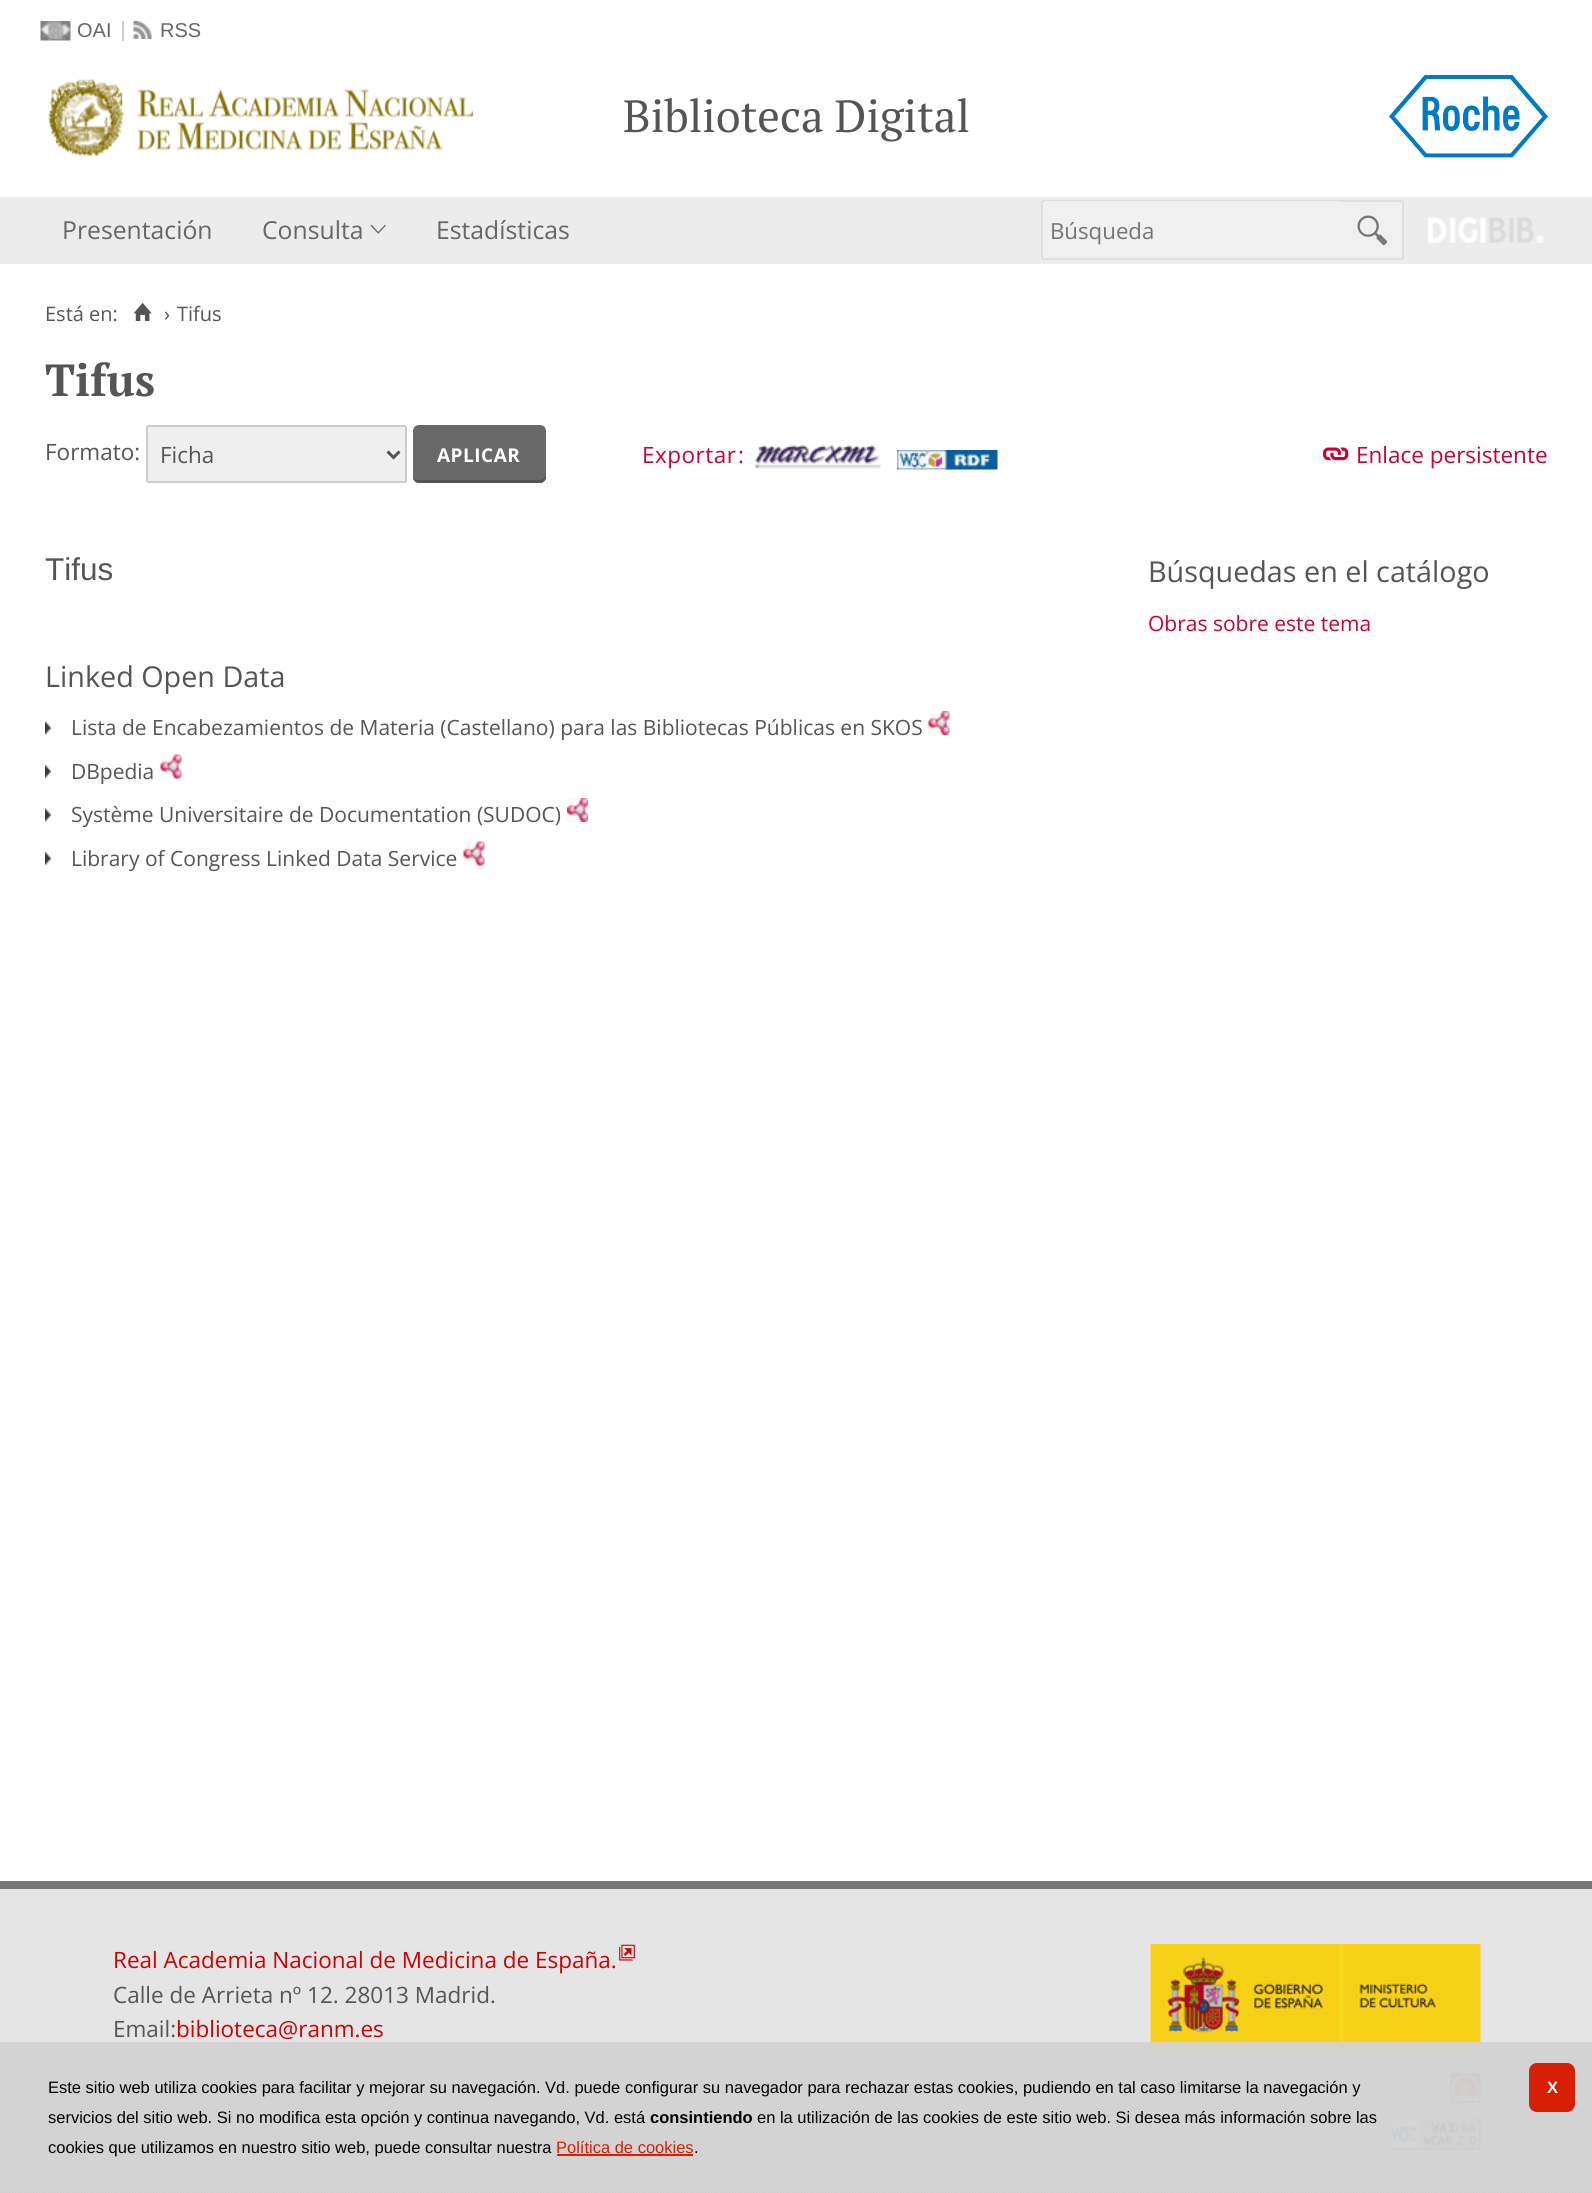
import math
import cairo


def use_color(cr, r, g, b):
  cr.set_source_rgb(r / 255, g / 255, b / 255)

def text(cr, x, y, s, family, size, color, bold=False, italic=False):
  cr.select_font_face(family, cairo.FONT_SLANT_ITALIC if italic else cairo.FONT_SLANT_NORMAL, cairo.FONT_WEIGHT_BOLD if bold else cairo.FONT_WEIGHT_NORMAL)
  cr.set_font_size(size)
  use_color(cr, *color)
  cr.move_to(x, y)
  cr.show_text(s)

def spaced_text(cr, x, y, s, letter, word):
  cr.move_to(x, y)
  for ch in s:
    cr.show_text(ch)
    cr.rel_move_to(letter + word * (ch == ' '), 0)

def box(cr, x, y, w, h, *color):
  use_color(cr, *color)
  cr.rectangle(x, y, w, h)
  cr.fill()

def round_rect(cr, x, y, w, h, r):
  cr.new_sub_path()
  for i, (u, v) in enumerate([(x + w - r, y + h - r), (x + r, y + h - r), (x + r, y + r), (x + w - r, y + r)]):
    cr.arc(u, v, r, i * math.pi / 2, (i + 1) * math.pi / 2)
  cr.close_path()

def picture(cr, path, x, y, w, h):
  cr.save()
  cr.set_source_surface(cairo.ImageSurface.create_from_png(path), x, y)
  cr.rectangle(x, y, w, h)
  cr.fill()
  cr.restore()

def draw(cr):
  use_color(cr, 255, 255, 255)
  cr.paint()
  picture(cr, "img_01.png", 40, 21, 31, 20)
  box(cr, 122, 21, 2, 20, 204, 204, 204)
  picture(cr, "img_02.png", 133, 21, 19, 18)
  picture(cr, "img_03.png", 48, 79, 426, 78)
  picture(cr, "img_04.png", 1389, 75, 159, 83)
  box(cr, 0, 197, 1592, 67, 236, 236, 236)
  picture(cr, "img_05.png", 370, 224, 16, 10)
  use_color(cr, 240, 240, 240)
  round_rect(cr, 1042, 201, 361, 58, 2)
  cr.fill_preserve()
  use_color(cr, 221, 221, 221)
  cr.stroke()
  use_color(cr, 240, 240, 240)
  round_rect(cr, 1043, 201, 300, 57, 3)
  cr.fill()
  picture(cr, "img_06.png", 1357, 215, 31, 31)
  picture(cr, "img_07.png", 1428, 217, 116, 26)
  picture(cr, "img_08.png", 133, 302, 19, 19)
  use_color(cr, 239, 239, 239)
  round_rect(cr, 147, 426, 259, 56, 2)
  cr.fill_preserve()
  use_color(cr, 204, 204, 204)
  cr.stroke()
  cr.new_path()
  cr.move_to(387.5, 451.5)
  cr.line_to(393.5, 457.5)
  cr.line_to(399.5, 451.5)
  use_color(cr, 85, 85, 85)
  cr.set_line_width(3)
  cr.stroke()
  use_color(cr, 105, 105, 105)
  round_rect(cr, 413, 425, 133, 58, 6)
  cr.fill()
  use_color(cr, 85, 85, 85)
  cr.new_path()
  cr.move_to(413, 477)
  cr.curve_to(413, 480, 416, 483, 419, 483)
  cr.line_to(540, 483)
  cr.curve_to(543, 483, 546, 480, 546, 477)
  cr.line_to(546, 474)
  cr.curve_to(546, 477, 543, 480, 540, 480)
  cr.line_to(418, 480)
  cr.curve_to(416, 480, 414, 479, 413, 477)
  cr.close_path()
  cr.fill()
  picture(cr, "img_09.png", 754, 445, 127, 25)
  picture(cr, "img_10.png", 897, 450, 101, 20)
  picture(cr, "img_11.png", 1323, 447, 26, 14)
  picture(cr, "img_12.png", 45, 721, 6, 14)
  picture(cr, "img_13.png", 928, 711, 22, 24)
  picture(cr, "img_14.png", 45, 765, 6, 14)
  picture(cr, "img_15.png", 160, 754, 22, 25)
  picture(cr, "img_12.png", 45, 808, 6, 14)
  picture(cr, "img_16.png", 567, 798, 21, 24)
  picture(cr, "img_14.png", 45, 852, 6, 14)
  picture(cr, "img_15.png", 463, 841, 22, 25)
  box(cr, 0, 1889, 1592, 304, 229, 229, 229)
  box(cr, 0, 1881, 1592, 8, 119, 119, 119)
  picture(cr, "img_17.png", 619, 1944, 16, 17)
  picture(cr, "img_18.png", 1150, 1944, 331, 107)
  picture(cr, "img_19.png", 1450, 2073, 31, 30)
  picture(cr, "img_20.png", 1387, 2116, 94, 34)
  cr.set_source_rgba(0.824, 0.824, 0.824, 0.95)
  cr.rectangle(0, 2042, 1592, 151)
  cr.fill()
  cr.new_path()
  cr.move_to(0, 2192)
  cr.line_to(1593, 2192)
  use_color(cr, 204, 204, 204)
  cr.set_line_width(1.5)
  cr.set_dash([1.5, 1.5])
  cr.stroke()
  box(cr, 557, 2154, 136, 2, 216, 30, 5)
  round_rect(cr, 1529, 2063, 46, 49, 8)
  cr.fill()
  text(cr, 77, 37, "OAI", "Liberation Sans", 20, (102, 102, 102))
  text(cr, 160, 37, "RSS", "Liberation Sans", 20, (102, 102, 102))
  text(cr, 623, 132, "Biblioteca Digital", "PT Serif", 45, (85, 85, 85))
  text(cr, 62, 239, "Presentación", "Open Sans", 24.75, (102, 102, 102))
  text(cr, 262, 239, "Consulta", "Open Sans", 24.75, (102, 102, 102))
  text(cr, 436, 239, "Estadísticas", "Open Sans", 24.75, (102, 102, 102))
  text(cr, 1050, 239, "Búsqueda", "Open Sans", 22.25, (117, 117, 117))
  text(cr, 45, 321, "Está en:", "Open Sans", 20, (85, 85, 85))
  text(cr, 164, 321, "›", "Open Sans", 20, (85, 85, 85))
  text(cr, 177, 321, "Tifus", "Open Sans", 20, (85, 85, 85))
  text(cr, 45, 396, "Tifus", "PT Serif", 45, (85, 85, 85), bold=True)
  text(cr, 45, 460, "Formato:", "Open Sans", 22.5, (85, 85, 85))
  text(cr, 160, 463, "Ficha", "Open Sans", 22.5, (85, 85, 85))
  cr.select_font_face("Open Sans", cairo.FONT_SLANT_NORMAL, cairo.FONT_WEIGHT_BOLD)
  cr.set_font_size(19)
  use_color(cr, 255, 255, 255)
  spaced_text(cr, 437, 462, "APLICAR", 0.5, 0)
  cr.select_font_face("Open Sans")
  cr.set_font_size(22.5)
  use_color(cr, 204, 0, 51)
  spaced_text(cr, 642, 463, "Exportar", 0.5, 0)
  text(cr, 738, 463, ":", "Open Sans", 22.5, (204, 0, 51))
  text(cr, 1356, 463, "Enlace persistente", "Open Sans", 22.5, (204, 0, 51))
  text(cr, 45, 580, "Tifus", "Liberation Sans", 31.5, (85, 85, 85))
  text(cr, 45, 687, "Linked Open Data", "Open Sans", 28.75, (85, 85, 85))
  text(cr, 71, 735, "Lista de Encabezamientos de Materia (Castellano) para las Bibliotecas Públicas en SKOS", "Open Sans", 21, (85, 85, 85))
  text(cr, 71, 779, "DBpedia", "Open Sans", 21, (85, 85, 85))
  text(cr, 71, 822, "Système Universitaire de Documentation (SUDOC)", "Open Sans", 21, (85, 85, 85))
  text(cr, 71, 866, "Library of Congress Linked Data Service", "Open Sans", 21, (85, 85, 85))
  text(cr, 1148, 582, "Búsquedas en el catálogo", "Open Sans", 28.75, (85, 85, 85))
  text(cr, 1148, 631, "Obras sobre este tema", "Open Sans", 21, (204, 0, 51))
  text(cr, 113, 1968, "Real Academia Nacional de Medicina de España.", "Open Sans", 22.5, (209, 0, 0))
  text(cr, 113, 2003, "Calle de Arrieta nº 12. 28013 Madrid.", "Open Sans", 22.5, (85, 85, 85))
  text(cr, 113, 2037, "Email:", "Open Sans", 22.5, (85, 85, 85))
  text(cr, 176, 2037, "biblioteca@ranm.es", "Open Sans", 22.5, (209, 0, 0))
  text(cr, 48, 2093, "Este sitio web utiliza cookies para facilitar y mejorar su navegación. Vd. puede configurar su navegador para rechazar estas cookies, pudiendo en tal caso limitarse la navegación y", "Liberation Sans", 16.5, (0, 0, 0))
  text(cr, 48, 2123, "servicios del sitio web. Si no modifica esta opción y continua navegando, Vd. está", "Liberation Sans", 16.5, (0, 0, 0))
  text(cr, 650, 2123, "consintiendo", "Liberation Sans", 16.5, (0, 0, 0), bold=True)
  text(cr, 757, 2123, "en la utilización de las cookies de este sitio web. Si desea más información sobre las", "Liberation Sans", 16.5, (0, 0, 0))
  text(cr, 48, 2153, "cookies que utilizamos en nuestro sitio web, puede consultar nuestra", "Liberation Sans", 16.5, (0, 0, 0))
  text(cr, 556, 2153, "Política de cookies", "Liberation Sans", 16.5, (216, 30, 5))
  text(cr, 694, 2153, ".", "Liberation Sans", 16.5, (0, 0, 0))
  cr.select_font_face("Liberation Sans", cairo.FONT_SLANT_NORMAL, cairo.FONT_WEIGHT_BOLD)
  use_color(cr, 255, 255, 255)
  spaced_text(cr, 1547, 2093, "X", -1, 0)


surface = cairo.ImageSurface(cairo.FORMAT_RGB24, 1592, 2193)
cr = cairo.Context(surface)
options = cairo.FontOptions()
options.set_hint_metrics(cairo.HINT_METRICS_OFF)
options.set_hint_style(cairo.HINT_STYLE_NONE)
cr.set_font_options(options)
cr.set_miter_limit(4)
draw(cr)
surface.write_to_png("out.png")
